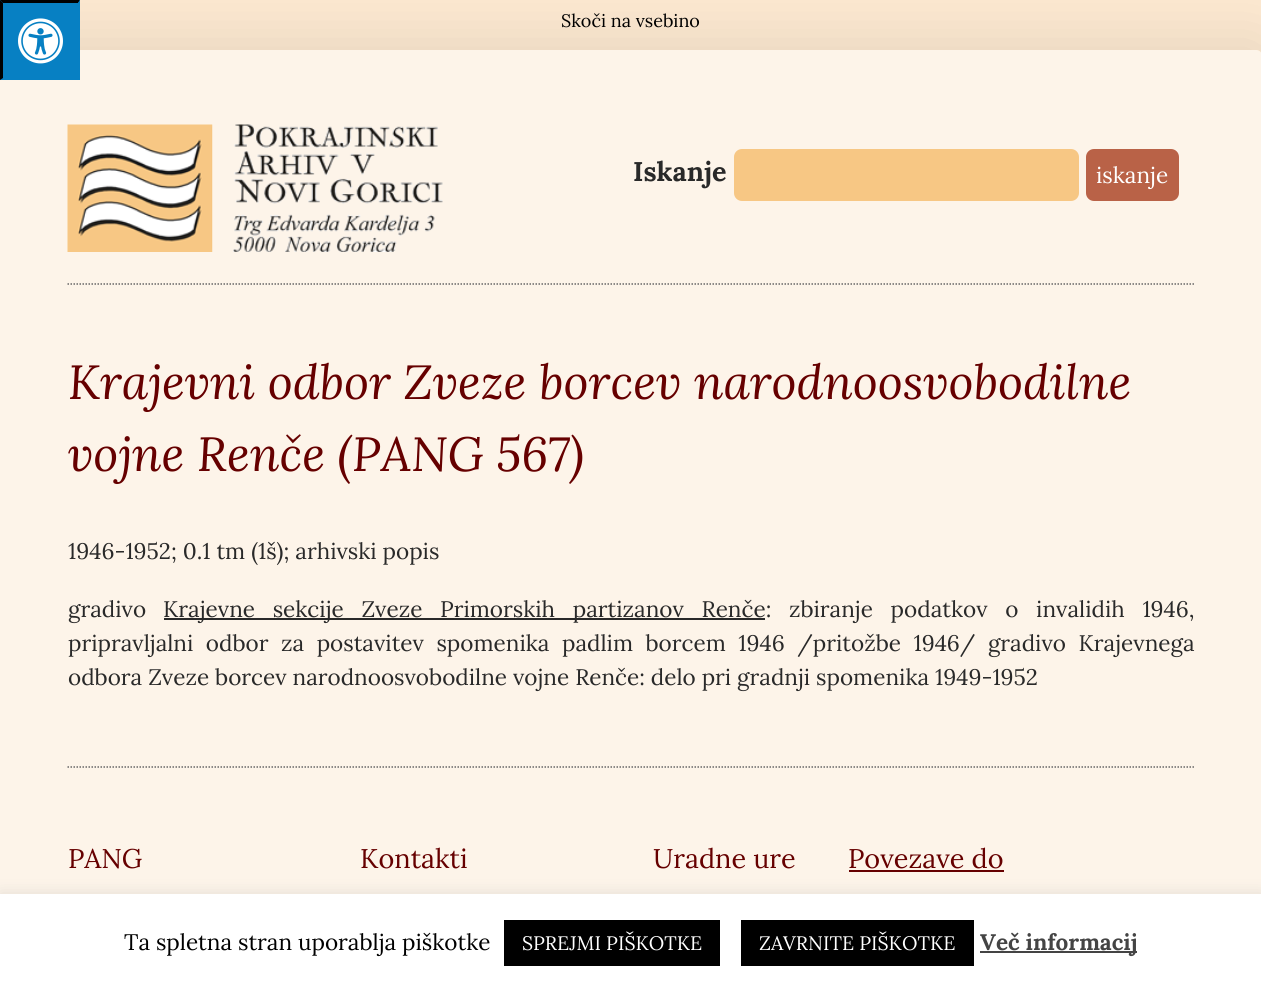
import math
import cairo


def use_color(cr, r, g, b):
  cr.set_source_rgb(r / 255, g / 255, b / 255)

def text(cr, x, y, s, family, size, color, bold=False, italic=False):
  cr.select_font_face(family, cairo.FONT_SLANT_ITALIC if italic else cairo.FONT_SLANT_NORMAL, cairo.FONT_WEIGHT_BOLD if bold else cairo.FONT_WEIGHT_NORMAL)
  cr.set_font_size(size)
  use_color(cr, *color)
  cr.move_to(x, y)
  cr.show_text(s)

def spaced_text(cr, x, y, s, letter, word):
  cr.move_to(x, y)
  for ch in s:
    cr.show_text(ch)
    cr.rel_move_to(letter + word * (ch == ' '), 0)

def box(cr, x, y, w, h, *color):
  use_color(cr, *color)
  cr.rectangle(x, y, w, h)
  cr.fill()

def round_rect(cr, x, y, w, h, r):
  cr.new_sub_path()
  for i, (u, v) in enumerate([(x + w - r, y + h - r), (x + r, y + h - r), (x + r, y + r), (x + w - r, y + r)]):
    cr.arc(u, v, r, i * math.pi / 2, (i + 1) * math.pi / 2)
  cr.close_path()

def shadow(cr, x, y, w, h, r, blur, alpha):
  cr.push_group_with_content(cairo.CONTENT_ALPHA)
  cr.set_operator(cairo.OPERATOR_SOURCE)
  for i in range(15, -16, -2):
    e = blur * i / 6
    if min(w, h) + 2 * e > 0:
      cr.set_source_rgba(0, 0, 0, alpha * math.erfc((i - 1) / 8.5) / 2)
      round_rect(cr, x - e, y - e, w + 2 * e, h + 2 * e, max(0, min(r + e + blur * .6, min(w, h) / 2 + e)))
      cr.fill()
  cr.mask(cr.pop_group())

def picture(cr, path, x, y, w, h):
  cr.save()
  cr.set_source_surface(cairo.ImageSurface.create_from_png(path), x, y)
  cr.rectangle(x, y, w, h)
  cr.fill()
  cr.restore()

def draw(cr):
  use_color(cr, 251, 231, 207)
  cr.paint()
  cr.save()
  cr.set_fill_rule(cairo.FILL_RULE_EVEN_ODD)
  cr.new_path()
  cr.move_to(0, 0)
  cr.line_to(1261, 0)
  cr.line_to(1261, 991)
  cr.line_to(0, 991)
  cr.close_path()
  cr.move_to(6, 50)
  cr.line_to(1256, 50)
  cr.curve_to(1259.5, 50, 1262, 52.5, 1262, 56)
  cr.line_to(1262, 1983)
  cr.curve_to(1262, 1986.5, 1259.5, 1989, 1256, 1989)
  cr.line_to(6, 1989)
  cr.curve_to(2.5, 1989, 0, 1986.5, 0, 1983)
  cr.line_to(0, 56)
  cr.curve_to(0, 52.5, 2.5, 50, 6, 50)
  cr.close_path()
  cr.clip()
  use_color(cr, 0, 0, 0)
  shadow(cr, -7, 42, 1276, 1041, 14, 26, 0.08)
  cr.restore()
  cr.set_source_rgba(1, 1, 1, 0.55)
  round_rect(cr, 0, 50, 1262, 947, 6)
  cr.fill()
  box(cr, 0, 0, 80, 80, 7, 128, 195)
  use_color(cr, 0, 0, 0)
  cr.new_path()
  cr.move_to(0, 0)
  cr.line_to(80, 0)
  cr.line_to(78, 3)
  cr.line_to(3, 3)
  cr.close_path()
  cr.fill()
  use_color(cr, 7, 128, 195)
  cr.new_path()
  cr.move_to(80, 0)
  cr.line_to(80, 80)
  cr.line_to(78, 78)
  cr.line_to(78, 3)
  cr.close_path()
  cr.fill()
  use_color(cr, 0, 0, 0)
  cr.new_path()
  cr.move_to(0, 80)
  cr.line_to(0, 0)
  cr.line_to(3, 3)
  cr.line_to(3, 78)
  cr.close_path()
  cr.fill()
  picture(cr, "img_01.png", 18, 18, 45, 46)
  picture(cr, "img_02.png", 67, 124, 376, 128)
  use_color(cr, 247, 199, 132)
  round_rect(cr, 734, 149, 345, 52, 8)
  cr.fill()
  use_color(cr, 185, 98, 71)
  round_rect(cr, 1087, 150, 91, 50, 7)
  cr.fill_preserve()
  cr.stroke()
  cr.new_path()
  cr.move_to(67.5, 284)
  cr.line_to(1194, 284)
  use_color(cr, 102, 102, 102)
  cr.set_line_width(1.5)
  cr.set_dash([1.5, 1.5])
  cr.stroke()
  box(cr, 164, 618, 601, 2, 41, 41, 41)
  cr.new_path()
  cr.move_to(67.5, 767)
  cr.line_to(1194, 767)
  use_color(cr, 102, 102, 102)
  cr.stroke()
  box(cr, 849, 870, 155, 2, 102, 0, 0)
  use_color(cr, 172, 171, 171)
  shadow(cr, 0, 893, 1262, 97, 0, 7.5, 0.3)
  box(cr, 0, 894, 1261, 97, 255, 255, 255)
  box(cr, 504, 920, 216, 46, 0, 0, 0)
  box(cr, 741, 920, 233, 46, 0, 0, 0)
  box(cr, 980, 951, 157, 2, 68, 68, 68)
  text(cr, 561, 27, "Skoči na vsebino", "Lora", 18, (0, 0, 0))
  text(cr, 633, 181, "Iskanje", "Lora", 27, (41, 41, 41), bold=True)
  text(cr, 1096, 183, "iskanje", "Lora", 22.5, (255, 255, 255))
  text(cr, 68, 399, "Krajevni odbor Zveze borcev narodnoosvobodilne", "Lora", 48, (102, 0, 0), italic=True)
  text(cr, 68, 471, "vojne Renče (PANG 567)", "Lora", 48, (102, 0, 0), italic=True)
  text(cr, 68, 559, "1946-1952; 0.1 tm (1š); arhivski popis", "Lora", 22.5, (41, 41, 41))
  text(cr, 68, 617, "gradivo", "Lora", 22.5, (41, 41, 41))
  spaced_text(cr, 163, 617, "Krajevne sekcije Zveze Primorskih partizanov Renče: zbiranje podatkov o invalidih 1946,", 0, 11.75)
  spaced_text(cr, 68, 651, "pripravljalni odbor za postavitev spomenika padlim borcem 1946 /pritožbe 1946/ gradivo Krajevnega", 0, 6.6)
  text(cr, 68, 685, "odbora Zveze borcev narodnoosvobodilne vojne Renče: delo pri gradnji spomenika 1949-1952", "Lora", 22.5, (41, 41, 41))
  text(cr, 68, 868, "PANG", "Lora", 27, (102, 0, 0))
  text(cr, 360, 868, "Kontakti", "Lora", 27, (102, 0, 0))
  text(cr, 653, 868, "Uradne ure", "Lora", 27, (102, 0, 0))
  text(cr, 848, 868, "Povezave do", "Lora", 27, (102, 0, 0))
  text(cr, 124, 950, "Ta spletna stran uporablja piškotke", "Lora", 22.5, (0, 0, 0))
  text(cr, 522, 950, "SPREJMI PIŠKOTKE", "Lora", 19.5, (255, 255, 255))
  text(cr, 759, 950, "ZAVRNITE PIŠKOTKE", "Lora", 19.5, (255, 255, 255))
  text(cr, 980, 950, "Več informacij", "Lora", 22.5, (68, 68, 68), bold=True)


surface = cairo.ImageSurface(cairo.FORMAT_RGB24, 1261, 991)
cr = cairo.Context(surface)
options = cairo.FontOptions()
options.set_hint_metrics(cairo.HINT_METRICS_OFF)
options.set_hint_style(cairo.HINT_STYLE_NONE)
cr.set_font_options(options)
cr.set_miter_limit(4)
draw(cr)
surface.write_to_png("out.png")
